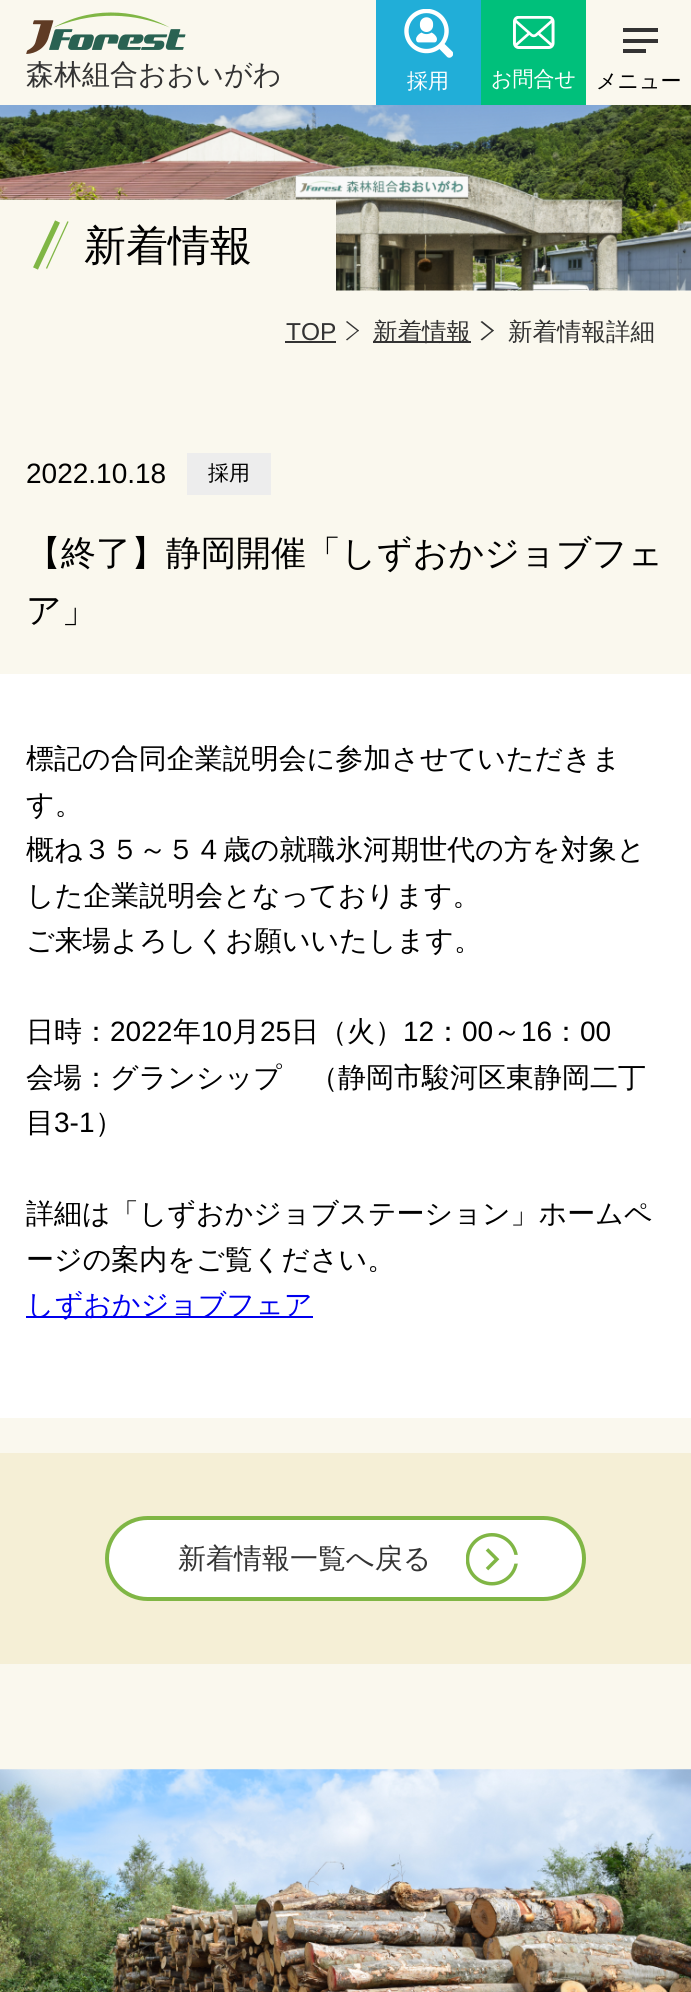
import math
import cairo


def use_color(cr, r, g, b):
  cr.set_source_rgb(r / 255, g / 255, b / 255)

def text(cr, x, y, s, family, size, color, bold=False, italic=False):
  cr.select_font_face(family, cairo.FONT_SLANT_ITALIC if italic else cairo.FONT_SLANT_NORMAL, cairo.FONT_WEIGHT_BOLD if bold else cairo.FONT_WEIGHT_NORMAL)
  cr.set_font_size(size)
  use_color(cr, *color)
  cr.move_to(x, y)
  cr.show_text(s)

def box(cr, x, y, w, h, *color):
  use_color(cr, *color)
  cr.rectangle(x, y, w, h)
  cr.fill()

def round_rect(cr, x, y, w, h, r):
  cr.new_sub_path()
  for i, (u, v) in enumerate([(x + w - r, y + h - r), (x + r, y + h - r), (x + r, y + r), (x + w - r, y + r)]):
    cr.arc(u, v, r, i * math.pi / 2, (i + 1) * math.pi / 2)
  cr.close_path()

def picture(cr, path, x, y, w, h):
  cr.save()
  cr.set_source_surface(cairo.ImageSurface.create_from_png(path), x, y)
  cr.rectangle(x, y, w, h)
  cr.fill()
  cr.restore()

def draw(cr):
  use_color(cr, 250, 248, 238)
  cr.paint()
  picture(cr, "img_01.png", 26, 12, 160, 42)
  box(cr, 376, 0, 105, 105, 33, 174, 216)
  picture(cr, "img_02.png", 404, 9, 49, 49)
  box(cr, 481, 0, 105, 105, 0, 192, 123)
  picture(cr, "img_03.png", 513, 16, 42, 33)
  box(cr, 623, 28, 35, 4, 51, 51, 51)
  box(cr, 623, 39, 35, 4, 51, 51, 51)
  box(cr, 623, 49, 23, 4, 51, 51, 51)
  picture(cr, "img_04.png", 0, 105, 691, 186)
  box(cr, 0, 200, 336, 91, 250, 248, 238)
  cr.new_path()
  cr.move_to(35.5, 268.5)
  cr.line_to(57.5, 221.5)
  use_color(cr, 128, 182, 69)
  cr.set_line_width(5.4)
  cr.stroke()
  cr.new_path()
  cr.move_to(46.5, 268.5)
  cr.line_to(68, 221.5)
  cr.set_line_width(1.3)
  cr.stroke()
  box(cr, 285, 341, 51, 2, 51, 51, 51)
  cr.new_path()
  cr.move_to(347, 321)
  cr.line_to(359, 330.5)
  cr.line_to(358, 331.5)
  cr.line_to(346, 322)
  cr.close_path()
  cr.fill()
  cr.new_path()
  cr.move_to(358, 330)
  cr.line_to(359, 330.5)
  cr.line_to(347, 340.5)
  cr.line_to(346, 339.5)
  cr.close_path()
  cr.fill()
  box(cr, 373, 341, 98, 2, 51, 51, 51)
  cr.new_path()
  cr.move_to(482, 321)
  cr.line_to(494, 330.5)
  cr.line_to(492.5, 331.5)
  cr.line_to(480.5, 322)
  cr.close_path()
  cr.fill()
  cr.new_path()
  cr.move_to(492.5, 330)
  cr.line_to(494, 330.5)
  cr.line_to(482, 340.5)
  cr.line_to(480.5, 339.5)
  cr.close_path()
  cr.fill()
  box(cr, 187, 453, 84, 42, 237, 237, 237)
  box(cr, 0, 674, 691, 744, 255, 255, 255)
  box(cr, 26, 1316, 287, 2, 0, 0, 238)
  box(cr, 0, 1453, 691, 211, 245, 239, 214)
  use_color(cr, 255, 255, 255)
  round_rect(cr, 107, 1518, 477, 81, 40.5)
  cr.fill_preserve()
  use_color(cr, 128, 182, 69)
  cr.set_line_width(4)
  cr.stroke()
  picture(cr, "img_05.png", 466, 1533, 52, 53)
  picture(cr, "img_06.png", 0, 1769, 691, 223)
  text(cr, 26, 84, "森林組合おおいがわ", "WenQuanYi Zen Hei Medium", 28, (51, 51, 51))
  text(cr, 407, 88, "採用", "WenQuanYi Zen Hei Medium", 21, (255, 255, 255))
  text(cr, 491, 86, "お問合せ", "WenQuanYi Zen Hei Medium", 21, (255, 255, 255))
  text(cr, 596, 88, "メニュー", "WenQuanYi Zen Hei Medium", 21, (0, 0, 0))
  text(cr, 84, 260, "新着情報", "WenQuanYi Zen Hei Medium", 42, (0, 0, 0))
  text(cr, 286, 340, "TOP", "Liberation Sans", 24.5, (51, 51, 51))
  text(cr, 373, 340, "新着情報", "WenQuanYi Zen Hei Medium", 24.5, (51, 51, 51))
  text(cr, 508, 340, "新着情報詳細", "WenQuanYi Zen Hei Medium", 24.5, (51, 51, 51))
  text(cr, 26, 483, "2022.10.18", "Liberation Sans", 28, (0, 0, 0))
  text(cr, 208, 480, "採用", "WenQuanYi Zen Hei Medium", 21, (0, 0, 0))
  text(cr, 26, 565, "【終了】静岡開催「しずおかジョブフェ", "WenQuanYi Zen Hei Medium", 35, (0, 0, 0))
  text(cr, 26, 622, "ア」", "WenQuanYi Zen Hei Medium", 35, (0, 0, 0))
  text(cr, 26, 768, "標記の合同企業説明会に参加させていただきま", "WenQuanYi Zen Hei Medium", 28, (0, 0, 0))
  text(cr, 26, 814, "す。", "WenQuanYi Zen Hei Medium", 28, (0, 0, 0))
  text(cr, 26, 859, "概ね３５～５４歳の就職氷河期世代の方を対象と", "WenQuanYi Zen Hei Medium", 28, (0, 0, 0))
  text(cr, 26, 905, "した企業説明会となっております。", "WenQuanYi Zen Hei Medium", 28, (0, 0, 0))
  text(cr, 26, 950, "ご来場よろしくお願いいたします。", "WenQuanYi Zen Hei Medium", 28, (0, 0, 0))
  text(cr, 26, 1041, "日時：", "WenQuanYi Zen Hei Medium", 28, (0, 0, 0))
  text(cr, 110, 1041, "2022", "Liberation Sans", 28, (0, 0, 0))
  text(cr, 173, 1041, "年", "WenQuanYi Zen Hei Medium", 28, (0, 0, 0))
  text(cr, 201, 1041, "10", "Liberation Sans", 28, (0, 0, 0))
  text(cr, 232, 1041, "月", "WenQuanYi Zen Hei Medium", 28, (0, 0, 0))
  text(cr, 260, 1041, "25", "Liberation Sans", 28, (0, 0, 0))
  text(cr, 291, 1041, "日（火）", "WenQuanYi Zen Hei Medium", 28, (0, 0, 0))
  text(cr, 403, 1041, "12", "Liberation Sans", 28, (0, 0, 0))
  text(cr, 434, 1041, "：", "WenQuanYi Zen Hei Medium", 28, (0, 0, 0))
  text(cr, 462, 1041, "00", "Liberation Sans", 28, (0, 0, 0))
  text(cr, 493, 1041, "～", "WenQuanYi Zen Hei Medium", 28, (0, 0, 0))
  text(cr, 521, 1041, "16", "Liberation Sans", 28, (0, 0, 0))
  text(cr, 552, 1041, "：", "WenQuanYi Zen Hei Medium", 28, (0, 0, 0))
  text(cr, 580, 1041, "00", "Liberation Sans", 28, (0, 0, 0))
  text(cr, 26, 1087, "会場：グランシップ　（静岡市駿河区東静岡二丁", "WenQuanYi Zen Hei Medium", 28, (0, 0, 0))
  text(cr, 26, 1132, "目", "WenQuanYi Zen Hei Medium", 28, (0, 0, 0))
  text(cr, 54, 1132, "3-1", "Liberation Sans", 28, (0, 0, 0))
  text(cr, 95, 1132, "）", "WenQuanYi Zen Hei Medium", 28, (0, 0, 0))
  text(cr, 26, 1223, "詳細は「しずおかジョブステーション」ホームペ", "WenQuanYi Zen Hei Medium", 28, (0, 0, 0))
  text(cr, 26, 1269, "ージの案内をご覧ください。", "WenQuanYi Zen Hei Medium", 28, (0, 0, 0))
  text(cr, 26, 1314, "しずおかジョブフェア", "WenQuanYi Zen Hei Medium", 28, (0, 0, 238))
  text(cr, 178, 1568, "新着情報一覧へ戻る", "WenQuanYi Zen Hei Medium", 28, (51, 51, 51))


surface = cairo.ImageSurface(cairo.FORMAT_RGB24, 691, 1992)
cr = cairo.Context(surface)
options = cairo.FontOptions()
options.set_hint_metrics(cairo.HINT_METRICS_OFF)
options.set_hint_style(cairo.HINT_STYLE_NONE)
cr.set_font_options(options)
cr.set_miter_limit(4)
draw(cr)
surface.write_to_png("out.png")
